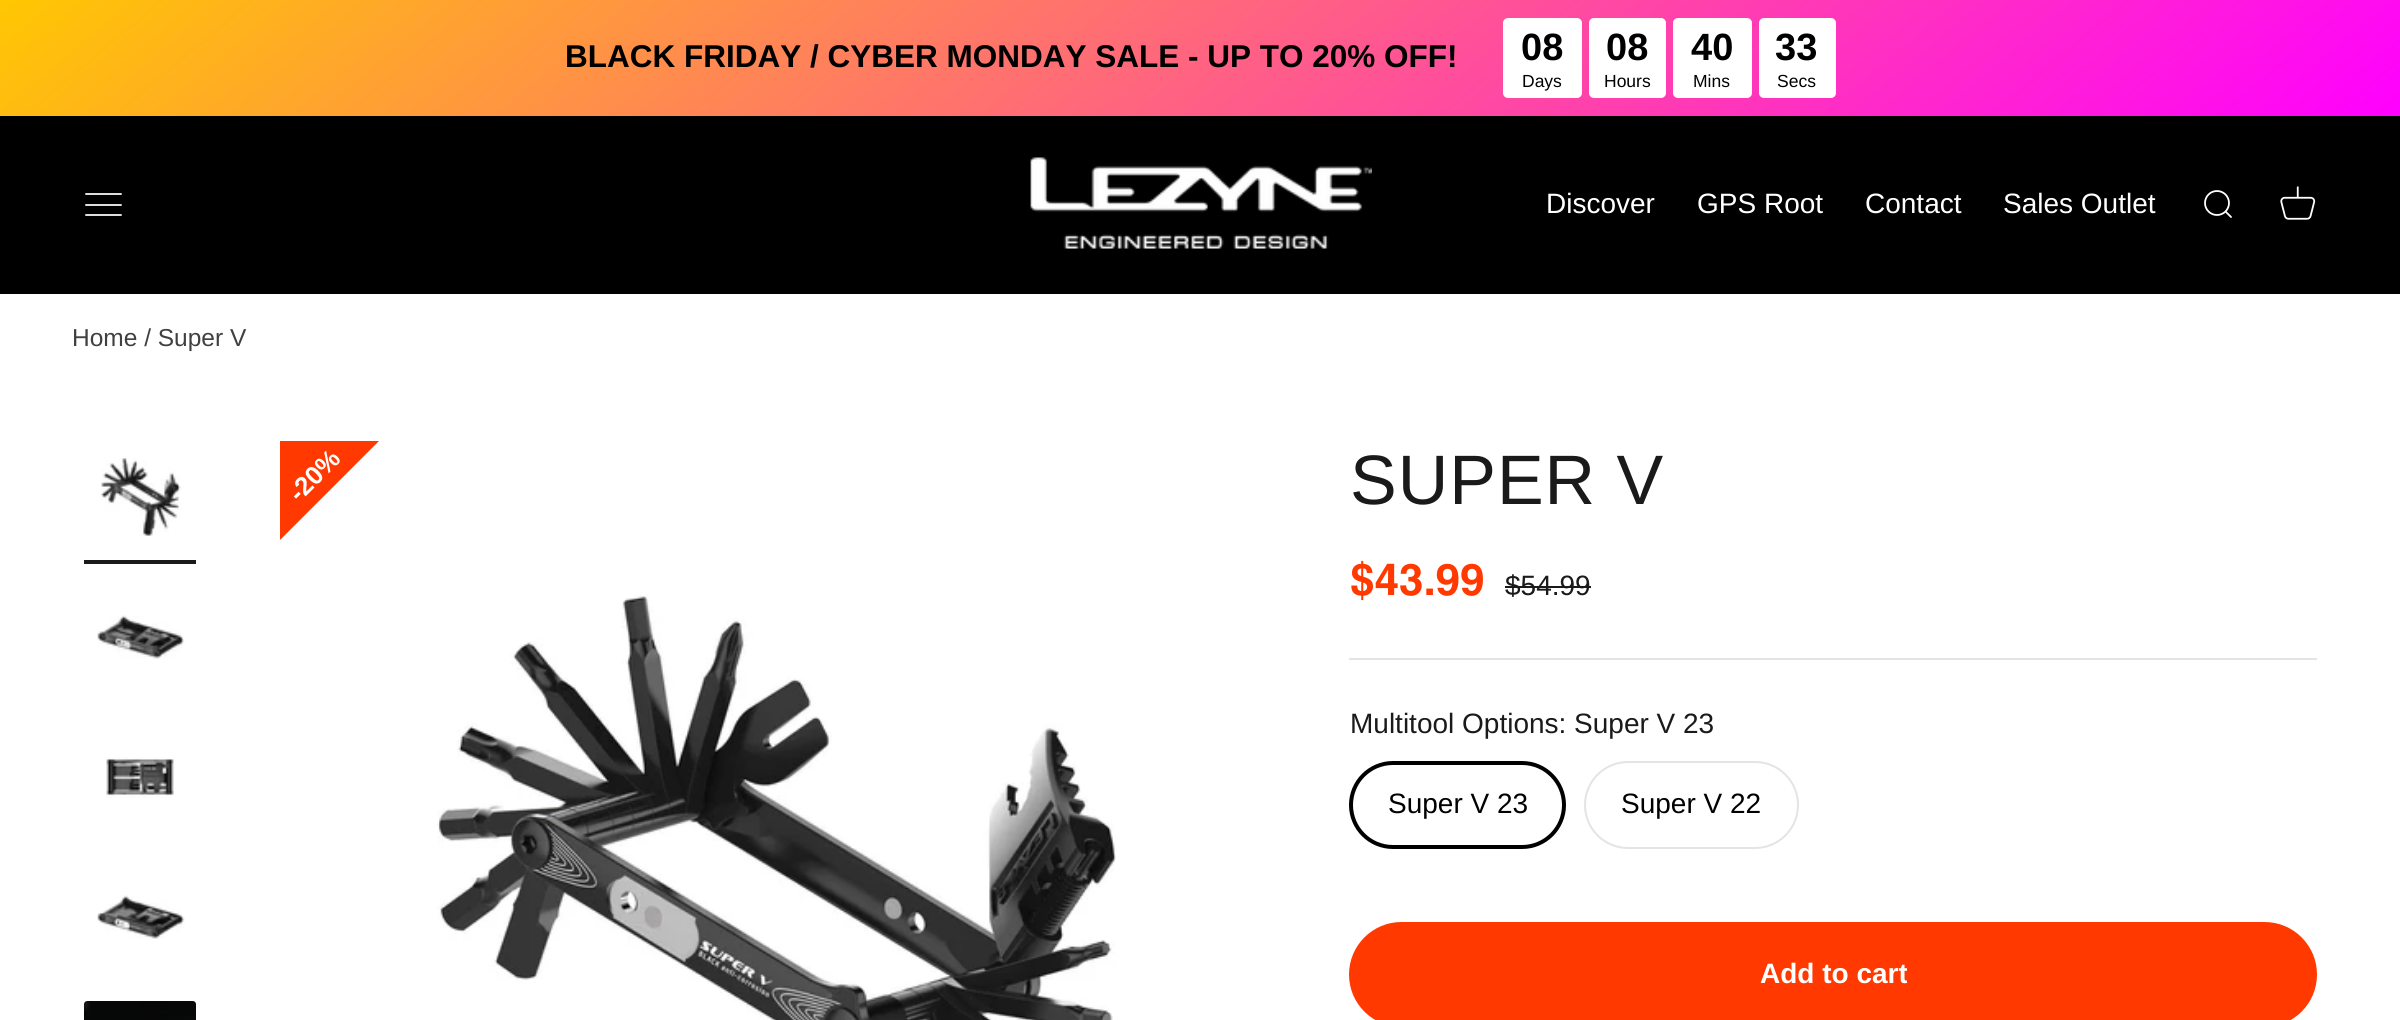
import math
import cairo


def use_color(cr, r, g, b):
  cr.set_source_rgb(r / 255, g / 255, b / 255)

def text(cr, x, y, s, family, size, color, bold=False, italic=False):
  cr.select_font_face(family, cairo.FONT_SLANT_ITALIC if italic else cairo.FONT_SLANT_NORMAL, cairo.FONT_WEIGHT_BOLD if bold else cairo.FONT_WEIGHT_NORMAL)
  cr.set_font_size(size)
  use_color(cr, *color)
  cr.move_to(x, y)
  cr.show_text(s)

def spaced_text(cr, x, y, s, letter, word):
  cr.move_to(x, y)
  for ch in s:
    cr.show_text(ch)
    cr.rel_move_to(letter + word * (ch == ' '), 0)

def box(cr, x, y, w, h, *color):
  use_color(cr, *color)
  cr.rectangle(x, y, w, h)
  cr.fill()

def round_rect(cr, x, y, w, h, r):
  cr.new_sub_path()
  for i, (u, v) in enumerate([(x + w - r, y + h - r), (x + r, y + h - r), (x + r, y + r), (x + w - r, y + r)]):
    cr.arc(u, v, r, i * math.pi / 2, (i + 1) * math.pi / 2)
  cr.close_path()

def picture(cr, path, x, y, w, h):
  cr.save()
  cr.set_source_surface(cairo.ImageSurface.create_from_png(path), x, y)
  cr.rectangle(x, y, w, h)
  cr.fill()
  cr.restore()

def draw(cr):
  use_color(cr, 255, 255, 255)
  cr.paint()
  gradient = cairo.LinearGradient(676, -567, 1725, 683)
  gradient.add_color_stop_rgba(0, 1, 0.78, 0.008, 1)
  gradient.add_color_stop_rgba(1, 1, 0, 1, 1)
  cr.set_source(gradient)
  cr.rectangle(0, 0, 2400, 116)
  cr.fill()
  use_color(cr, 255, 255, 255)
  round_rect(cr, 1503, 18, 79, 80, 5)
  cr.fill()
  round_rect(cr, 1589, 18, 77, 80, 5)
  cr.fill()
  round_rect(cr, 1673, 18, 79, 80, 5)
  cr.fill()
  round_rect(cr, 1759, 18, 77, 80, 5)
  cr.fill()
  box(cr, 0, 116, 2400, 178, 0, 0, 0)
  cr.new_path()
  cr.move_to(86, 194)
  cr.line_to(121, 194)
  cr.move_to(86, 205)
  cr.line_to(121, 205)
  cr.move_to(86, 215)
  cr.line_to(121, 215)
  use_color(cr, 255, 255, 255)
  cr.set_line_width(1.8)
  cr.set_line_cap(cairo.LINE_CAP_ROUND)
  cr.stroke()
  picture(cr, "img_01.png", 1030, 157, 342, 92)
  cr.arc(2217, 203, 12, 0, 2 * math.pi)
  cr.set_line_cap(cairo.LINE_CAP_BUTT)
  cr.stroke()
  cr.new_path()
  cr.move_to(2226, 212)
  cr.line_to(2231, 217)
  cr.set_line_cap(cairo.LINE_CAP_ROUND)
  cr.set_line_join(cairo.LINE_JOIN_ROUND)
  cr.stroke()
  picture(cr, "img_02.png", 2280, 186, 36, 34)
  picture(cr, "img_03.png", 101, 458, 80, 78)
  box(cr, 84, 560, 112, 4, 26, 26, 26)
  picture(cr, "img_04.png", 97, 615, 88, 44)
  picture(cr, "img_05.png", 106, 757, 68, 41)
  picture(cr, "img_06.png", 97, 895, 88, 44)
  picture(cr, "img_07.png", 84, 1001, 112, 19)
  use_color(cr, 255, 57, 0)
  cr.new_path()
  cr.move_to(379, 441)
  cr.line_to(280, 540)
  cr.line_to(280, 441)
  cr.close_path()
  cr.fill()
  picture(cr, "img_08.png", 437, 594, 679, 426)
  box(cr, 1505, 586, 86, 2, 26, 26, 26)
  box(cr, 1349, 658, 968, 2, 228, 228, 228)
  round_rect(cr, 1351, 763, 213, 84, 42)
  use_color(cr, 0, 0, 0)
  cr.set_line_width(4)
  cr.set_line_cap(cairo.LINE_CAP_BUTT)
  cr.set_line_join(cairo.LINE_JOIN_MITER)
  cr.stroke()
  round_rect(cr, 1585, 762, 213, 86, 43)
  use_color(cr, 228, 228, 228)
  cr.set_line_width(2)
  cr.stroke()
  use_color(cr, 255, 57, 0)
  round_rect(cr, 1349, 922, 968, 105, 52.5)
  cr.fill()
  text(cr, 565, 67, "BLACK FRIDAY / CYBER MONDAY SALE - UP TO 20% OFF!", "Liberation Sans", 31.5, (0, 0, 0), bold=True)
  text(cr, 1521, 60, "08", "Liberation Sans", 38, (0, 0, 0), bold=True)
  text(cr, 1522, 87, "Days", "Liberation Sans", 17.5, (0, 0, 0))
  text(cr, 1606, 60, "08", "Liberation Sans", 38, (0, 0, 0), bold=True)
  text(cr, 1604, 87, "Hours", "Liberation Sans", 17.5, (0, 0, 0))
  text(cr, 1691, 60, "40", "Liberation Sans", 38, (0, 0, 0), bold=True)
  text(cr, 1693, 87, "Mins", "Liberation Sans", 17.5, (0, 0, 0))
  text(cr, 1775, 60, "33", "Liberation Sans", 38, (0, 0, 0), bold=True)
  text(cr, 1777, 87, "Secs", "Liberation Sans", 17.5, (0, 0, 0))
  text(cr, 1546, 213, "Discover", "Liberation Sans", 28, (255, 255, 255))
  text(cr, 1697, 213, "GPS Root", "Liberation Sans", 28, (255, 255, 255))
  text(cr, 1865, 213, "Contact", "Liberation Sans", 28, (255, 255, 255))
  text(cr, 2003, 213, "Sales Outlet", "Liberation Sans", 28, (255, 255, 255))
  text(cr, 72, 346, "Home / Super V", "Liberation Sans", 24.5, (64, 64, 64))
  cr.save()
  cr.translate(299, 503)
  cr.rotate(-45 * math.pi / 180)
  text(cr, 0, 0, "-", "Liberation Sans", 26, (255, 255, 255), bold=True)
  cr.restore()
  cr.save()
  cr.translate(305, 497)
  cr.rotate(-45 * math.pi / 180)
  text(cr, 0, 0, "20%", "Liberation Sans", 26, (255, 255, 255), bold=True)
  cr.restore()
  cr.select_font_face("Liberation Sans")
  cr.set_font_size(70)
  use_color(cr, 26, 26, 26)
  spaced_text(cr, 1350, 504, "SUPER V", 1, 0)
  text(cr, 1350, 595, "$43.99", "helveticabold", 44, (255, 57, 0), bold=True)
  text(cr, 1505, 595, "$54.99", "Liberation Sans", 28, (26, 26, 26))
  text(cr, 1350, 733, "Multitool Options: Super V 23", "Liberation Sans", 28, (26, 26, 26))
  text(cr, 1388, 813, "Super V 23", "Liberation Sans", 28, (0, 0, 0))
  text(cr, 1621, 813, "Super V 22", "Liberation Sans", 28, (0, 0, 0))
  text(cr, 1760, 983, "Add to cart", "Liberation Sans", 28, (255, 255, 255), bold=True)


surface = cairo.ImageSurface(cairo.FORMAT_RGB24, 2400, 1020)
cr = cairo.Context(surface)
options = cairo.FontOptions()
options.set_hint_metrics(cairo.HINT_METRICS_OFF)
options.set_hint_style(cairo.HINT_STYLE_NONE)
cr.set_font_options(options)
cr.set_miter_limit(4)
draw(cr)
surface.write_to_png("out.png")
